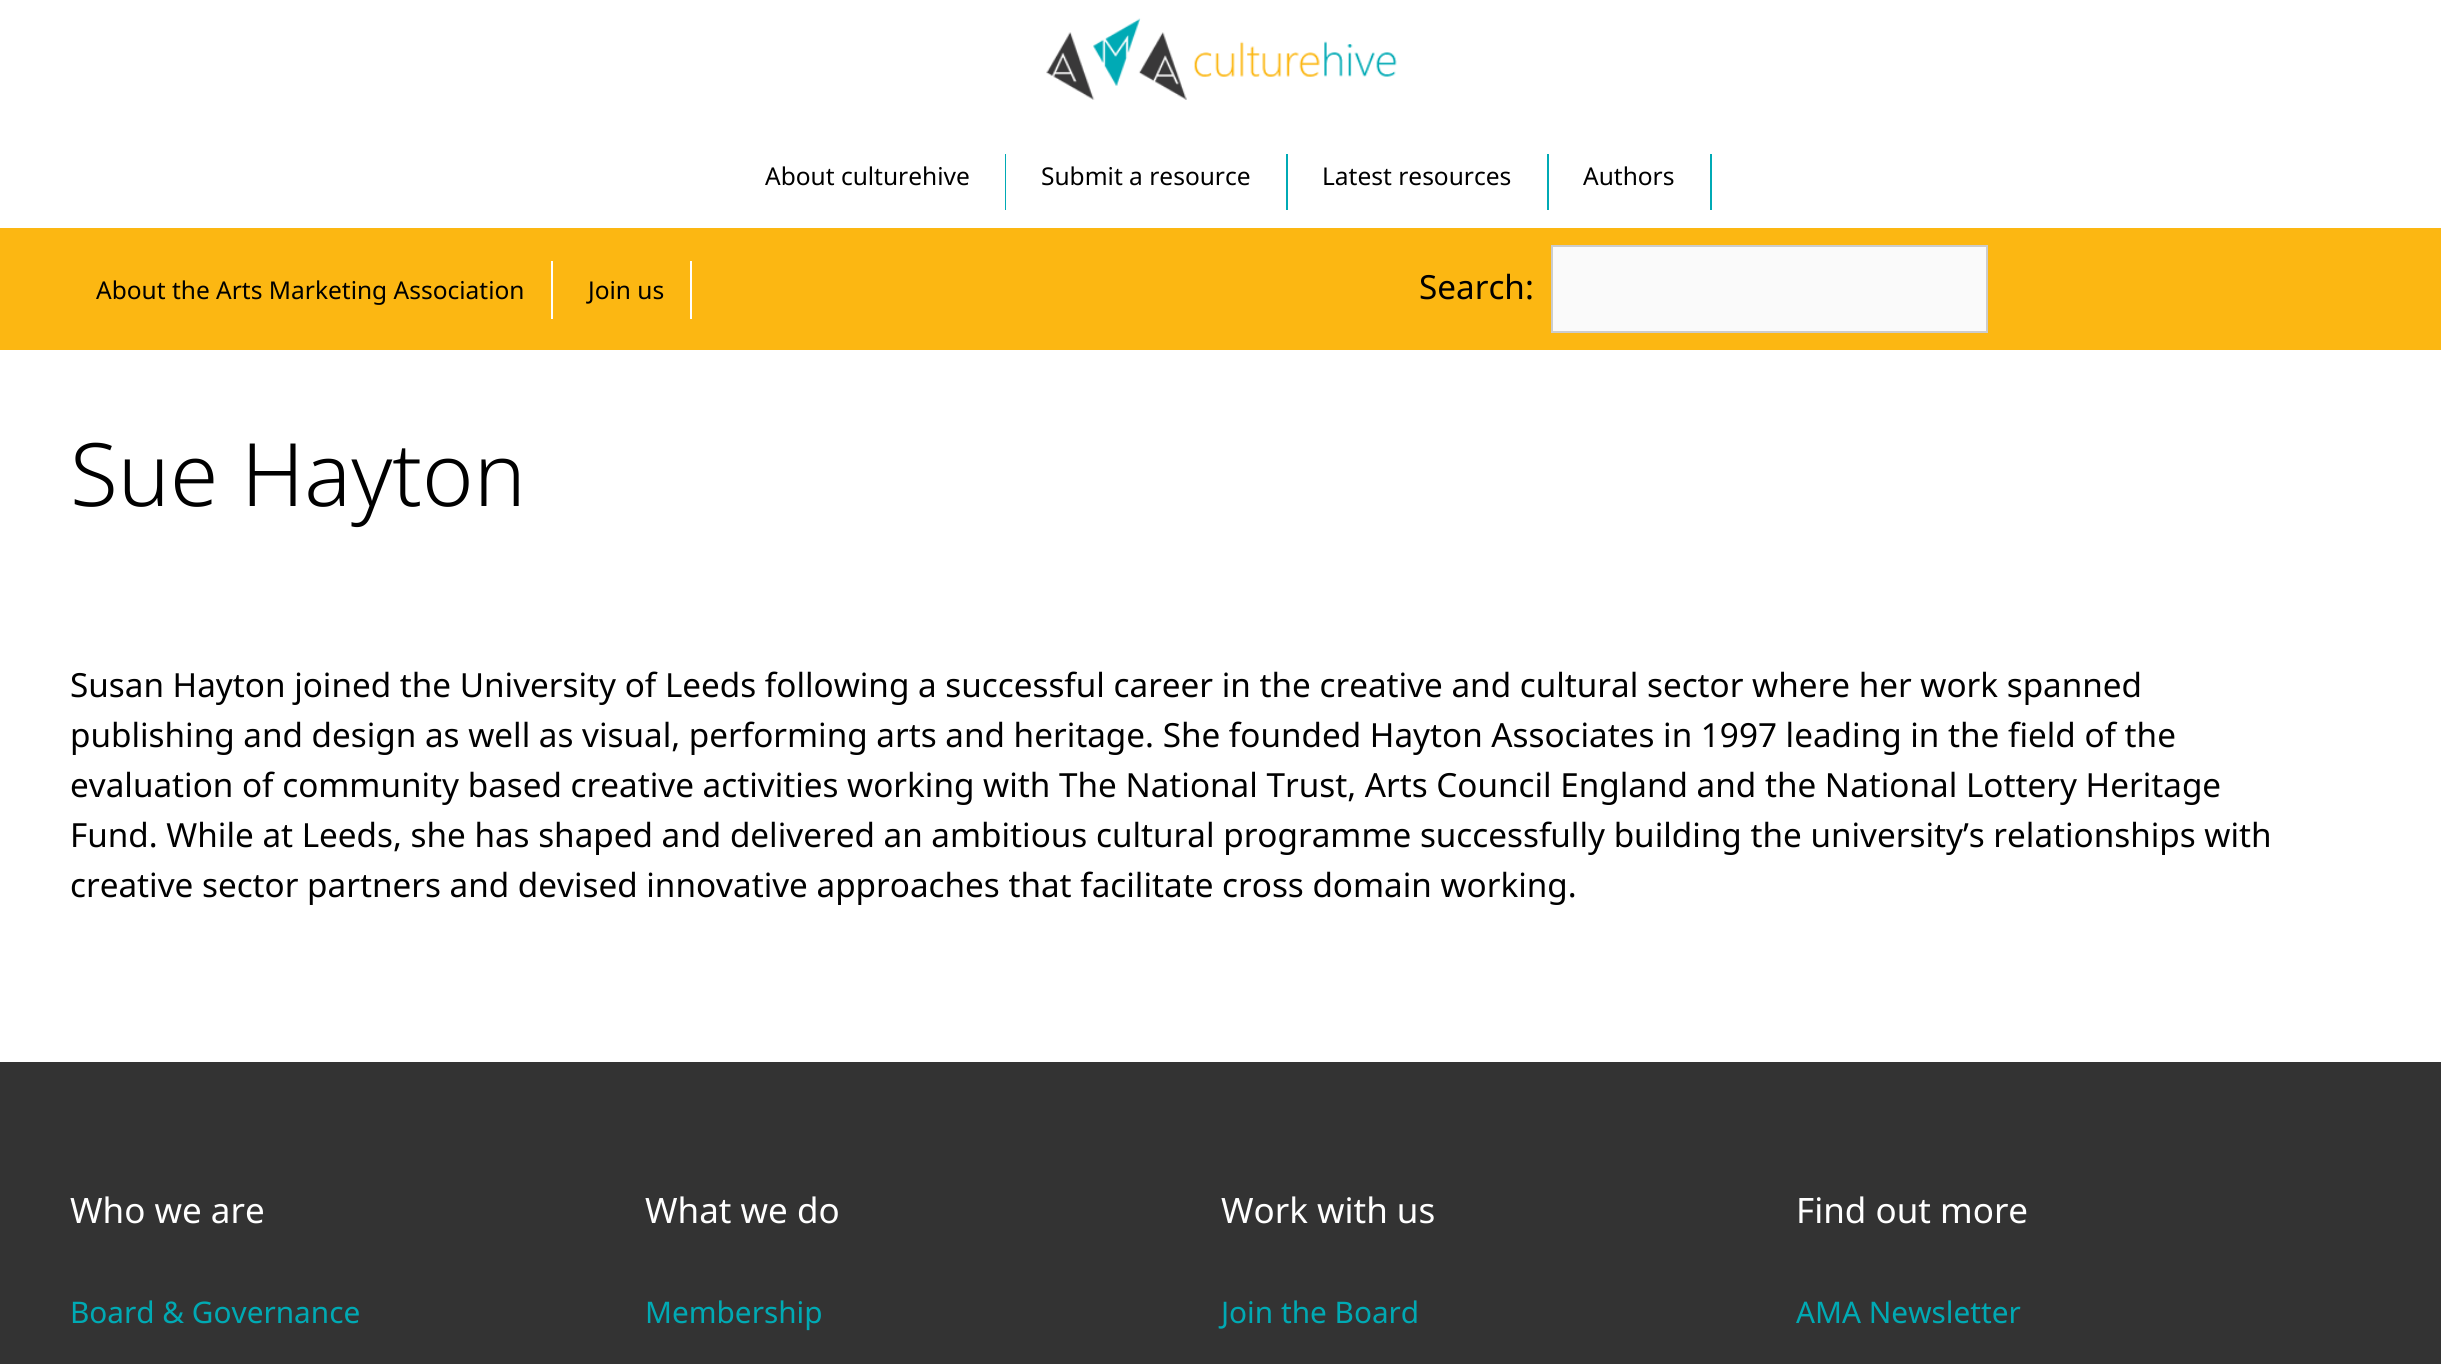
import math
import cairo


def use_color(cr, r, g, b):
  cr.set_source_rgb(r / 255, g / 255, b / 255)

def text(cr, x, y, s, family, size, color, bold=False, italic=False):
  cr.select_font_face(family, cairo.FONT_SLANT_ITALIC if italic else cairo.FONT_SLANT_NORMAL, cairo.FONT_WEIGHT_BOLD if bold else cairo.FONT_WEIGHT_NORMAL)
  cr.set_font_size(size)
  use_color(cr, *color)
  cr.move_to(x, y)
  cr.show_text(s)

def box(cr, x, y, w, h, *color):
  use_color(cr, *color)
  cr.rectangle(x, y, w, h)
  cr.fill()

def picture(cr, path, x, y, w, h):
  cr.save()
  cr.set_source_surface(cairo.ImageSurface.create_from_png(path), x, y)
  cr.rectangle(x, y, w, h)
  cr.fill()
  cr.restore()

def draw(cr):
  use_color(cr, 255, 255, 255)
  cr.paint()
  picture(cr, "img_01.png", 1046, 18, 351, 82)
  box(cr, 1005, 154, 1, 56, 0, 170, 181)
  box(cr, 1286, 154, 2, 56, 0, 170, 181)
  box(cr, 1547, 154, 2, 56, 0, 170, 181)
  box(cr, 1710, 154, 2, 56, 0, 170, 181)
  box(cr, 0, 228, 2441, 122, 252, 183, 18)
  box(cr, 551, 261, 2, 58, 255, 255, 255)
  box(cr, 690, 261, 2, 58, 255, 255, 255)
  use_color(cr, 250, 250, 250)
  cr.rectangle(1552, 246, 435, 86)
  cr.fill_preserve()
  use_color(cr, 204, 204, 204)
  cr.stroke()
  box(cr, 0, 1062, 2441, 302, 51, 51, 51)
  text(cr, 765, 185, "About culturehive", "Noto Sans", 24.5, (0, 0, 0))
  text(cr, 1041, 185, "Submit a resource", "Noto Sans", 24.5, (0, 0, 0))
  text(cr, 1322, 185, "Latest resources", "Noto Sans", 24.5, (0, 0, 0))
  text(cr, 1583, 185, "Authors", "Noto Sans", 24.5, (0, 0, 0))
  text(cr, 96, 299, "About the Arts Marketing Association", "Noto Sans", 24.5, (0, 0, 0))
  text(cr, 588, 299, "Join us", "Noto Sans", 24.5, (0, 0, 0))
  text(cr, 1419, 299, "Search:", "Noto Sans", 33.25, (0, 0, 0))
  text(cr, 70, 506, "Sue Hayton", "Noto Sans Light", 87.5, (0, 0, 0))
  text(cr, 70, 697, "Susan Hayton joined the University of Leeds following a successful career in the creative and cultural sector where her work spanned", "Noto Sans", 33.25, (0, 0, 0))
  text(cr, 70, 747, "publishing and design as well as visual, performing arts and heritage. She founded Hayton Associates in 1997 leading in the field of the", "Noto Sans", 33.25, (0, 0, 0))
  text(cr, 70, 797, "evaluation of community based creative activities working with The National Trust, Arts Council England and the National Lottery Heritage", "Noto Sans", 33.25, (0, 0, 0))
  text(cr, 70, 847, "Fund. While at Leeds, she has shaped and delivered an ambitious cultural programme successfully building the university’s relationships with", "Noto Sans", 33.25, (0, 0, 0))
  text(cr, 70, 897, "creative sector partners and devised innovative approaches that facilitate cross domain working.", "Noto Sans", 33.25, (0, 0, 0))
  text(cr, 70, 1223, "Who we are", "Noto Sans", 35, (255, 255, 255))
  text(cr, 70, 1323, "Board & Governance", "Noto Sans", 29.75, (0, 170, 180))
  text(cr, 645, 1223, "What we do", "Noto Sans", 35, (255, 255, 255))
  text(cr, 645, 1323, "Membership", "Noto Sans", 29.75, (0, 170, 180))
  text(cr, 1221, 1223, "Work with us", "Noto Sans", 35, (255, 255, 255))
  text(cr, 1221, 1323, "Join the Board", "Noto Sans", 29.75, (0, 170, 180))
  text(cr, 1796, 1223, "Find out more", "Noto Sans", 35, (255, 255, 255))
  text(cr, 1796, 1323, "AMA Newsletter", "Noto Sans", 29.75, (0, 170, 180))


surface = cairo.ImageSurface(cairo.FORMAT_RGB24, 2441, 1364)
cr = cairo.Context(surface)
options = cairo.FontOptions()
options.set_hint_metrics(cairo.HINT_METRICS_OFF)
options.set_hint_style(cairo.HINT_STYLE_NONE)
cr.set_font_options(options)
cr.set_miter_limit(4)
draw(cr)
surface.write_to_png("out.png")
